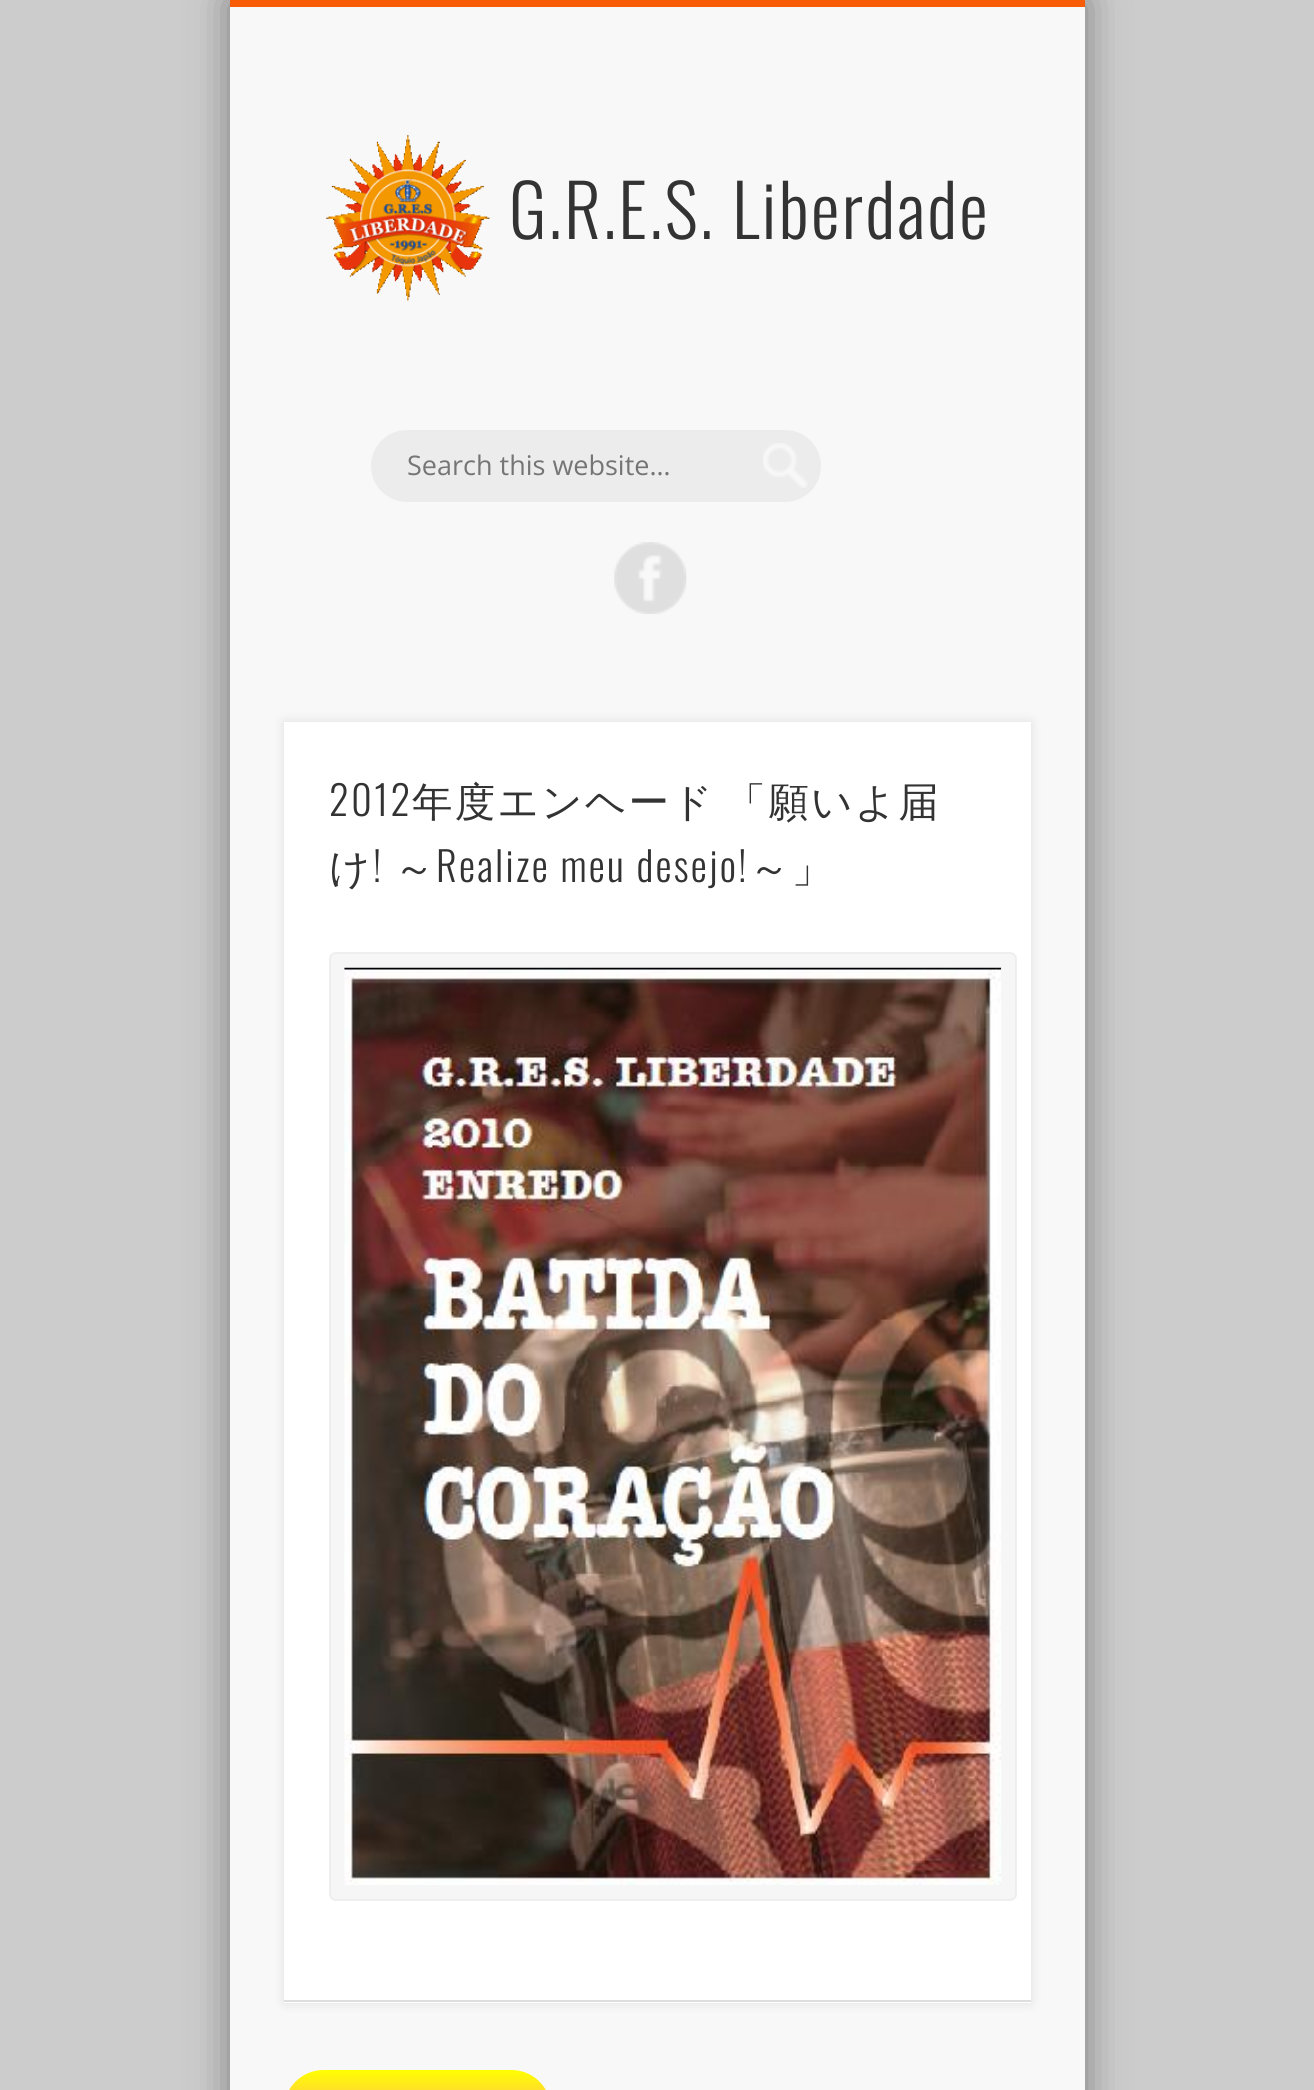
import math
import cairo


def use_color(cr, r, g, b):
  cr.set_source_rgb(r / 255, g / 255, b / 255)

def text(cr, x, y, s, family, size, color, bold=False, italic=False):
  cr.select_font_face(family, cairo.FONT_SLANT_ITALIC if italic else cairo.FONT_SLANT_NORMAL, cairo.FONT_WEIGHT_BOLD if bold else cairo.FONT_WEIGHT_NORMAL)
  cr.set_font_size(size)
  use_color(cr, *color)
  cr.move_to(x, y)
  cr.show_text(s)

def spaced_text(cr, x, y, s, letter, word):
  cr.move_to(x, y)
  for ch in s:
    cr.show_text(ch)
    cr.rel_move_to(letter + word * (ch == ' '), 0)

def box(cr, x, y, w, h, *color):
  use_color(cr, *color)
  cr.rectangle(x, y, w, h)
  cr.fill()

def round_rect(cr, x, y, w, h, r):
  cr.new_sub_path()
  for i, (u, v) in enumerate([(x + w - r, y + h - r), (x + r, y + h - r), (x + r, y + r), (x + w - r, y + r)]):
    cr.arc(u, v, r, i * math.pi / 2, (i + 1) * math.pi / 2)
  cr.close_path()

def shadow(cr, x, y, w, h, r, blur, alpha):
  cr.push_group_with_content(cairo.CONTENT_ALPHA)
  cr.set_operator(cairo.OPERATOR_SOURCE)
  for i in range(15, -16, -2):
    e = blur * i / 6
    if min(w, h) + 2 * e > 0:
      cr.set_source_rgba(0, 0, 0, alpha * math.erfc((i - 1) / 8.5) / 2)
      round_rect(cr, x - e, y - e, w + 2 * e, h + 2 * e, max(0, min(r + e + blur * .6, min(w, h) / 2 + e)))
      cr.fill()
  cr.mask(cr.pop_group())

def picture(cr, path, x, y, w, h):
  cr.save()
  cr.set_source_surface(cairo.ImageSurface.create_from_png(path), x, y)
  cr.rectangle(x, y, w, h)
  cr.fill()
  cr.restore()

def draw(cr):
  use_color(cr, 204, 204, 204)
  cr.paint()
  use_color(cr, 0, 0, 0)
  shadow(cr, 230, 0, 855, 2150, 0, 20, 0.4)
  box(cr, 230, 7, 855, 2083, 248, 248, 248)
  box(cr, 230, 0, 855, 7, 249, 92, 6)
  picture(cr, "img_01.png", 326, 135, 164, 166)
  use_color(cr, 236, 236, 236)
  round_rect(cr, 371, 430, 450, 72, 36)
  cr.fill()
  picture(cr, "img_02.png", 763, 443, 45, 45)
  picture(cr, "img_03.png", 614, 542, 73, 72)
  use_color(cr, 0, 0, 0)
  shadow(cr, 284, 722, 747, 1281, 0, 5.5, 0.1)
  box(cr, 284, 722, 747, 1281, 255, 255, 255)
  box(cr, 284, 2000, 747, 2, 222, 222, 222)
  use_color(cr, 246, 246, 246)
  round_rect(cr, 330, 953, 686, 947, 6)
  cr.fill_preserve()
  use_color(cr, 238, 238, 238)
  cr.stroke()
  picture(cr, "img_04.png", 344, 967, 658, 918)
  gradient = cairo.LinearGradient(417, 2070, 417, 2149)
  gradient.add_color_stop_rgba(0, 1, 1, 0, 1)
  gradient.add_color_stop_rgba(0.8, 1, 0.627, 0.478, 1)
  cr.set_source(gradient)
  round_rect(cr, 284, 2070, 267, 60, 39.5)
  cr.fill()
  cr.select_font_face("Oswald Light")
  cr.set_font_size(72)
  use_color(cr, 51, 51, 51)
  spaced_text(cr, 509, 239, "G.R.E.S. Liberdade", 2.25, 0)
  text(cr, 407, 475, "Search this website…", "Open Sans", 27, (117, 117, 117))
  cr.select_font_face("Oswald Light")
  cr.set_font_size(40.5)
  use_color(cr, 51, 51, 51)
  spaced_text(cr, 329, 816, "2012", 2.25, 0)
  cr.select_font_face("WenQuanYi Zen Hei Medium")
  spaced_text(cr, 412, 816, "年度エンヘード 「願いよ届", 2.25, -4)
  spaced_text(cr, 329, 882, "け", 2.25, 0)
  cr.select_font_face("Oswald Light")
  spaced_text(cr, 373, 882, "!", 2.25, 0)
  cr.select_font_face("WenQuanYi Zen Hei Medium")
  spaced_text(cr, 394, 882, "～", 2.25, 0)
  cr.select_font_face("Oswald Light")
  spaced_text(cr, 436, 882, "Realize meu desejo!", 2.25, 0)
  cr.select_font_face("WenQuanYi Zen Hei Medium")
  spaced_text(cr, 749, 882, "～」", 2.25, 0)


surface = cairo.ImageSurface(cairo.FORMAT_RGB24, 1314, 2090)
cr = cairo.Context(surface)
options = cairo.FontOptions()
options.set_hint_metrics(cairo.HINT_METRICS_OFF)
options.set_hint_style(cairo.HINT_STYLE_NONE)
cr.set_font_options(options)
cr.set_miter_limit(4)
draw(cr)
surface.write_to_png("out.png")
